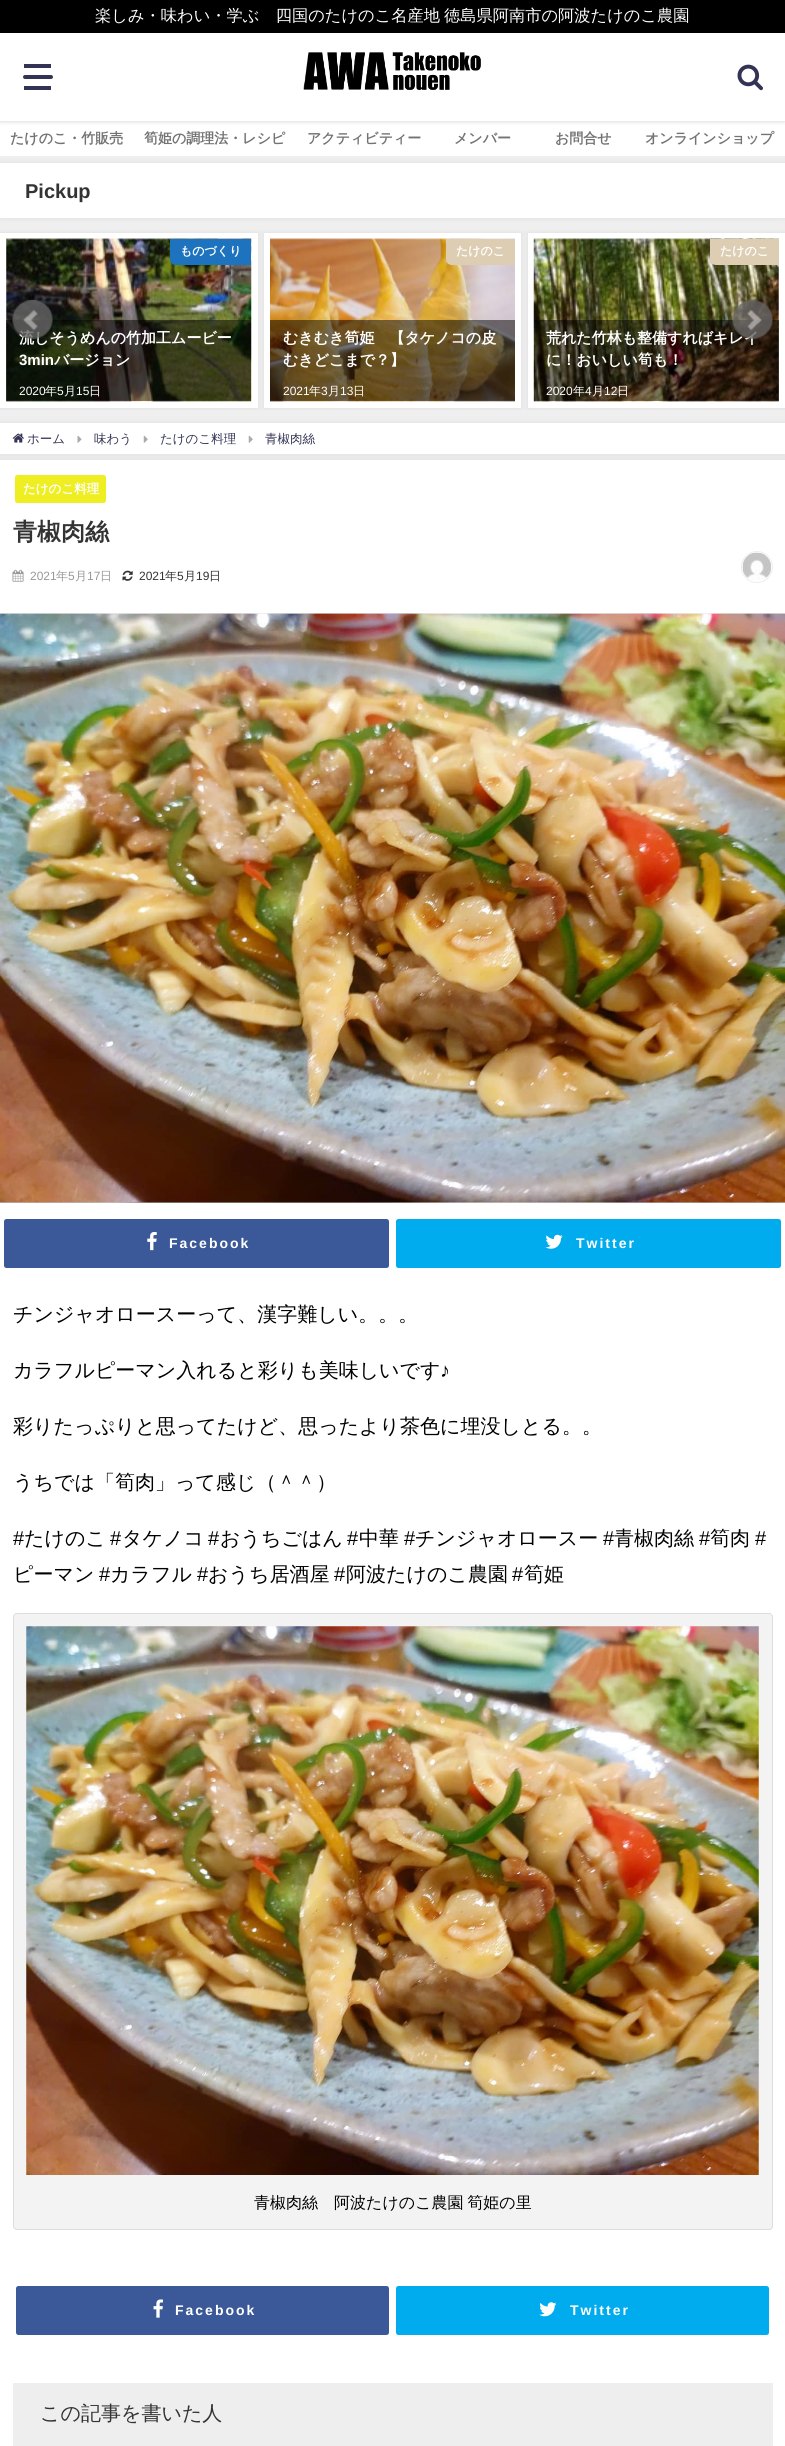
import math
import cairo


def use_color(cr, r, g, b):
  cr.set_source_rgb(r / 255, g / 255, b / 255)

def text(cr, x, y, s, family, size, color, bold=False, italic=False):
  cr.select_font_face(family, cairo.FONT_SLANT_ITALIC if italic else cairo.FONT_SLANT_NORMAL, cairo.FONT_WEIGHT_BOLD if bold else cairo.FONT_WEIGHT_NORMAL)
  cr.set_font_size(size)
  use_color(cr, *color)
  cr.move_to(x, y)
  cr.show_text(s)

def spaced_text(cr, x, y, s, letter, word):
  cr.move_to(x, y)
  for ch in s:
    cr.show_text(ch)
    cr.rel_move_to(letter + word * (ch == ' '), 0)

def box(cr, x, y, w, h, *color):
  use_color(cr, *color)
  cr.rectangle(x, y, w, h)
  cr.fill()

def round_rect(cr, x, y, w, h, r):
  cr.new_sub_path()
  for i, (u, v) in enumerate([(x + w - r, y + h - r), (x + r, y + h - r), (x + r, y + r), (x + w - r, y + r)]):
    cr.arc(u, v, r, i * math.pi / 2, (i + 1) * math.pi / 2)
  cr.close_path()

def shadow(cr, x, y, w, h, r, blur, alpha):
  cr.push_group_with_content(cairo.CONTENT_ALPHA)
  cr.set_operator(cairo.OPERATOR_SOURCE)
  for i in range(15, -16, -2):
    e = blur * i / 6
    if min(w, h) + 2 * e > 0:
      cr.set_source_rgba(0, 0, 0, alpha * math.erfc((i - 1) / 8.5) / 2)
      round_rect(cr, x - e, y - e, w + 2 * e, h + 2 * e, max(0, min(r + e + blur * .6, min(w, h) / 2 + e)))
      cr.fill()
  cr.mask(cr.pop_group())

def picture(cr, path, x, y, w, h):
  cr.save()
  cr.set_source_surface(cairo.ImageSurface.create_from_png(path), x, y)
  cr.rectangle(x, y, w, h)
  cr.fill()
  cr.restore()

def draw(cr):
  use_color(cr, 239, 239, 239)
  cr.paint()
  box(cr, 0, 121, 785, 35, 255, 255, 255)
  use_color(cr, 0, 0, 0)
  shadow(cr, 0, 0, 785, 121, 0, 2.5, 0.2)
  box(cr, 0, 33, 785, 88, 255, 255, 255)
  box(cr, 0, 0, 785, 33, 0, 0, 0)
  box(cr, 24, 64, 27, 4, 51, 51, 85)
  round_rect(cr, 23, 75, 30, 4, 2)
  cr.fill()
  box(cr, 24, 86, 27, 4, 51, 51, 85)
  picture(cr, "img_01.png", 303, 52, 178, 38)
  picture(cr, "img_02.png", 737, 64, 26, 27)
  use_color(cr, 150, 150, 150)
  shadow(cr, 0, 163, 785, 55, 0, 3, 0.2)
  box(cr, 0, 163, 785, 55, 255, 255, 255)
  cr.save()
  cr.rectangle(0, 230, 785, 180)
  cr.clip()
  use_color(cr, 150, 150, 150)
  shadow(cr, 0, 233, 258, 175, 0, 3, 0.2)
  cr.restore()
  box(cr, 0, 233, 258, 175, 255, 255, 255)
  picture(cr, "img_03.png", 6, 238, 246, 164)
  use_color(cr, 30, 115, 190)
  cr.new_path()
  cr.move_to(170, 239)
  cr.line_to(251, 239)
  cr.line_to(251, 265)
  cr.line_to(176, 265)
  cr.curve_to(172.5, 265, 170, 262.5, 170, 259)
  cr.close_path()
  cr.fill()
  cr.set_source_rgba(0, 0, 0, 0.5)
  cr.rectangle(6, 320, 245, 81)
  cr.fill()
  cr.save()
  cr.rectangle(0, 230, 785, 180)
  cr.clip()
  use_color(cr, 150, 150, 150)
  shadow(cr, 264, 233, 257, 175, 0, 3, 0.2)
  cr.restore()
  box(cr, 264, 233, 257, 175, 255, 255, 255)
  picture(cr, "img_04.png", 270, 238, 245, 164)
  use_color(cr, 221, 205, 179)
  cr.new_path()
  cr.move_to(446, 239)
  cr.line_to(515, 239)
  cr.line_to(515, 265)
  cr.line_to(452, 265)
  cr.curve_to(448.5, 265, 446, 262.5, 446, 259)
  cr.close_path()
  cr.fill()
  cr.set_source_rgba(0, 0, 0, 0.5)
  cr.rectangle(270, 320, 245, 81)
  cr.fill()
  cr.save()
  cr.rectangle(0, 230, 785, 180)
  cr.clip()
  use_color(cr, 150, 150, 150)
  shadow(cr, 528, 233, 257, 175, 0, 3, 0.2)
  cr.restore()
  box(cr, 528, 233, 257, 175, 255, 255, 255)
  picture(cr, "img_05.png", 533, 238, 246, 164)
  use_color(cr, 221, 205, 179)
  cr.new_path()
  cr.move_to(710, 239)
  cr.line_to(779, 239)
  cr.line_to(779, 265)
  cr.line_to(716, 265)
  cr.curve_to(712.5, 265, 710, 262.5, 710, 259)
  cr.close_path()
  cr.fill()
  cr.set_source_rgba(0, 0, 0, 0.5)
  cr.rectangle(534, 320, 245, 81)
  cr.fill()
  use_color(cr, 150, 150, 150)
  shadow(cr, 0, 423, 785, 31, 0, 3, 0.2)
  box(cr, 0, 423, 785, 31, 255, 255, 255)
  picture(cr, "img_08.png", 12, 433, 12, 10)
  picture(cr, "img_09.png", 77, 435, 5, 8)
  picture(cr, "img_10.png", 143, 435, 5, 8)
  picture(cr, "img_10.png", 248, 435, 5, 8)
  use_color(cr, 150, 150, 150)
  shadow(cr, 0, 460, 785, 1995, 0, 3, 0.2)
  box(cr, 0, 460, 785, 1986, 255, 255, 255)
  use_color(cr, 238, 238, 34)
  round_rect(cr, 15, 475, 91, 28, 2.5)
  cr.fill()
  picture(cr, "img_11.png", 12, 569, 12, 13)
  picture(cr, "img_12.png", 122, 570, 11, 11)
  cr.arc(757, 567, 15.5, 0, 2 * math.pi)
  use_color(cr, 238, 238, 238)
  cr.set_line_width(1)
  cr.stroke()
  picture(cr, "img_13.png", 742, 552, 29, 28)
  picture(cr, "img_14.png", 0, 613, 785, 590)
  cr.save()
  cr.rectangle(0, 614, 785, 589)
  cr.clip()
  use_color(cr, 229, 229, 229)
  shadow(cr, -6, 608, 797, 601, 0, 6, 1)
  cr.restore()
  picture(cr, "img_15.png", 0, 613, 785, 590)
  picture(cr, "img_16.png", 0, 613, 785, 590)
  use_color(cr, 59, 89, 152)
  round_rect(cr, 5.5, 1220.5, 382, 46, 1)
  cr.fill_preserve()
  cr.set_line_width(3)
  cr.stroke()
  picture(cr, "img_17.png", 147, 1231, 10, 20)
  use_color(cr, 0, 172, 238)
  round_rect(cr, 397.5, 1220.5, 382, 46, 1)
  cr.fill_preserve()
  cr.stroke()
  picture(cr, "img_18.png", 545, 1234, 18, 15)
  use_color(cr, 243, 243, 243)
  round_rect(cr, 13.5, 1613.5, 759, 616, 3.5)
  cr.fill_preserve()
  use_color(cr, 221, 221, 221)
  cr.set_line_width(1)
  cr.stroke()
  picture(cr, "img_19.png", 26, 1626, 733, 549)
  use_color(cr, 59, 89, 152)
  round_rect(cr, 17.5, 2287.5, 370, 46, 1)
  cr.fill_preserve()
  cr.set_line_width(3)
  cr.stroke()
  picture(cr, "img_20.png", 153, 2299, 10, 19)
  use_color(cr, 0, 172, 238)
  round_rect(cr, 397.5, 2287.5, 370, 46, 1)
  cr.fill_preserve()
  cr.stroke()
  picture(cr, "img_21.png", 539, 2302, 18, 15)
  box(cr, 13, 2383, 760, 60, 238, 238, 238)
  cr.rectangle(14.5, 2444.5, 757, 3)
  cr.stroke()
  cr.select_font_face("WenQuanYi Zen Hei Medium")
  cr.set_font_size(16.25)
  use_color(cr, 255, 255, 255)
  spaced_text(cr, 95, 21, "楽しみ・味わい・学ぶ　四国のたけのこ名産地 徳島県阿南市の阿波たけのこ農園", 0, -1)
  text(cr, 10, 143, "たけのこ・竹販売", "WenQuanYi Zen Hei", 14, (115, 115, 115), bold=True)
  text(cr, 144, 143, "筍姫の調理法・レシピ", "WenQuanYi Zen Hei", 14, (115, 115, 115), bold=True)
  text(cr, 307, 143, "アクティビティー", "WenQuanYi Zen Hei", 14, (115, 115, 115), bold=True)
  text(cr, 454, 143, "メンバー", "WenQuanYi Zen Hei", 14, (115, 115, 115), bold=True)
  text(cr, 555, 143, "お問合せ", "WenQuanYi Zen Hei", 14, (115, 115, 115), bold=True)
  text(cr, 645, 143, "オンラインショップ", "WenQuanYi Zen Hei", 14, (115, 115, 115), bold=True)
  text(cr, 25, 198, "Pickup", "Liberation Sans", 20, (51, 51, 51), bold=True)
  text(cr, 180, 255, "ものづくり", "WenQuanYi Zen Hei", 12, (255, 255, 255), bold=True)
  text(cr, 19, 343, "流しそうめんの竹加工ムービー", "WenQuanYi Zen Hei", 15, (255, 255, 255), bold=True)
  text(cr, 19, 365, "3min", "Liberation Sans", 15, (255, 255, 255), bold=True)
  text(cr, 54, 365, "バージョン", "WenQuanYi Zen Hei", 15, (255, 255, 255), bold=True)
  text(cr, 19, 395, "2020", "Liberation Sans", 12, (255, 255, 255))
  text(cr, 45, 395, "年", "WenQuanYi Zen Hei Medium", 12, (255, 255, 255))
  text(cr, 57, 395, "5", "Liberation Sans", 12, (255, 255, 255))
  text(cr, 64, 395, "月", "WenQuanYi Zen Hei Medium", 12, (255, 255, 255))
  text(cr, 76, 395, "15", "Liberation Sans", 12, (255, 255, 255))
  text(cr, 89, 395, "日", "WenQuanYi Zen Hei Medium", 12, (255, 255, 255))
  text(cr, 456, 255, "たけのこ", "WenQuanYi Zen Hei", 12, (255, 255, 255), bold=True)
  text(cr, 283, 343, "むきむき筍姫　【タケノコの皮", "WenQuanYi Zen Hei", 15, (255, 255, 255), bold=True)
  text(cr, 283, 365, "むきどこまで？】", "WenQuanYi Zen Hei", 15, (255, 255, 255), bold=True)
  text(cr, 283, 395, "2021", "Liberation Sans", 12, (255, 255, 255))
  text(cr, 309, 395, "年", "WenQuanYi Zen Hei Medium", 12, (255, 255, 255))
  text(cr, 321, 395, "3", "Liberation Sans", 12, (255, 255, 255))
  text(cr, 328, 395, "月", "WenQuanYi Zen Hei Medium", 12, (255, 255, 255))
  text(cr, 340, 395, "13", "Liberation Sans", 12, (255, 255, 255))
  text(cr, 353, 395, "日", "WenQuanYi Zen Hei Medium", 12, (255, 255, 255))
  text(cr, 720, 255, "たけのこ", "WenQuanYi Zen Hei", 12, (255, 255, 255), bold=True)
  text(cr, 546, 343, "荒れた竹林も整備すればキレイ", "WenQuanYi Zen Hei", 15, (255, 255, 255), bold=True)
  text(cr, 546, 365, "に！おいしい筍も！", "WenQuanYi Zen Hei", 15, (255, 255, 255), bold=True)
  text(cr, 546, 395, "2020", "Liberation Sans", 12, (255, 255, 255))
  text(cr, 573, 395, "年", "WenQuanYi Zen Hei Medium", 12, (255, 255, 255))
  text(cr, 585, 395, "4", "Liberation Sans", 12, (255, 255, 255))
  text(cr, 592, 395, "月", "WenQuanYi Zen Hei Medium", 12, (255, 255, 255))
  text(cr, 604, 395, "12", "Liberation Sans", 12, (255, 255, 255))
  text(cr, 617, 395, "日", "WenQuanYi Zen Hei Medium", 12, (255, 255, 255))
  picture(cr, "img_06.png", 12, 300, 41, 39)
  picture(cr, "img_07.png", 732, 300, 41, 39)
  text(cr, 27, 443, "ホーム", "WenQuanYi Zen Hei Medium", 12.5, (51, 51, 85))
  text(cr, 94, 443, "味わう", "WenQuanYi Zen Hei Medium", 12.5, (51, 51, 85))
  text(cr, 160, 443, "たけのこ料理", "WenQuanYi Zen Hei Medium", 12.5, (51, 51, 85))
  text(cr, 265, 443, "青椒肉絲", "WenQuanYi Zen Hei Medium", 12.5, (51, 51, 85))
  text(cr, 23, 493, "たけのこ料理", "WenQuanYi Zen Hei", 12.5, (255, 255, 255), bold=True)
  text(cr, 13, 540, "青椒肉絲", "WenQuanYi Zen Hei", 24, (51, 51, 51), bold=True)
  text(cr, 30, 580, "2021", "Liberation Sans", 12, (153, 153, 153))
  text(cr, 56, 580, "年", "WenQuanYi Zen Hei Medium", 12, (153, 153, 153))
  text(cr, 68, 580, "5", "Liberation Sans", 12, (153, 153, 153))
  text(cr, 75, 580, "月", "WenQuanYi Zen Hei Medium", 12, (153, 153, 153))
  text(cr, 87, 580, "17", "Liberation Sans", 12, (153, 153, 153))
  text(cr, 100, 580, "日", "WenQuanYi Zen Hei Medium", 12, (153, 153, 153))
  text(cr, 139, 580, "2021", "Liberation Sans", 12, (51, 51, 51))
  text(cr, 165, 580, "年", "WenQuanYi Zen Hei Medium", 12, (51, 51, 51))
  text(cr, 177, 580, "5", "Liberation Sans", 12, (51, 51, 51))
  text(cr, 184, 580, "月", "WenQuanYi Zen Hei Medium", 12, (51, 51, 51))
  text(cr, 196, 580, "19", "Liberation Sans", 12, (51, 51, 51))
  text(cr, 209, 580, "日", "WenQuanYi Zen Hei Medium", 12, (51, 51, 51))
  cr.select_font_face("Liberation Sans", cairo.FONT_SLANT_NORMAL, cairo.FONT_WEIGHT_BOLD)
  cr.set_font_size(14)
  use_color(cr, 255, 255, 255)
  spaced_text(cr, 169, 1248, "Facebook", 2, 0)
  spaced_text(cr, 576, 1248, "Twitter", 2, 0)
  text(cr, 13, 1321, "チンジャオロースーって、漢字難しい。。。", "WenQuanYi Zen Hei Medium", 20, (0, 0, 0))
  text(cr, 13, 1377, "カラフルピーマン入れると彩りも美味しいです", "WenQuanYi Zen Hei Medium", 20, (0, 0, 0))
  text(cr, 440, 1377, "♪", "Liberation Sans", 20, (0, 0, 0))
  text(cr, 13, 1433, "彩りたっぷりと思ってたけど、思ったより茶色に埋没しとる。。", "WenQuanYi Zen Hei Medium", 20, (0, 0, 0))
  text(cr, 13, 1489, "うちでは「筍肉」って感じ（＾＾）", "WenQuanYi Zen Hei Medium", 20, (0, 0, 0))
  text(cr, 13, 1545, "#", "Liberation Sans", 20, (0, 0, 0))
  text(cr, 24, 1545, "たけのこ", "WenQuanYi Zen Hei Medium", 20, (0, 0, 0))
  text(cr, 110, 1545, "#", "Liberation Sans", 20, (0, 0, 0))
  text(cr, 122, 1545, "タケノコ", "WenQuanYi Zen Hei Medium", 20, (0, 0, 0))
  text(cr, 208, 1545, "#", "Liberation Sans", 20, (0, 0, 0))
  text(cr, 220, 1545, "おうちごはん", "WenQuanYi Zen Hei Medium", 20, (0, 0, 0))
  text(cr, 347, 1545, "#", "Liberation Sans", 20, (0, 0, 0))
  text(cr, 359, 1545, "中華", "WenQuanYi Zen Hei Medium", 20, (0, 0, 0))
  text(cr, 404, 1545, "#", "Liberation Sans", 20, (0, 0, 0))
  text(cr, 415, 1545, "チンジャオロースー", "WenQuanYi Zen Hei Medium", 20, (0, 0, 0))
  text(cr, 603, 1545, "#", "Liberation Sans", 20, (0, 0, 0))
  text(cr, 614, 1545, "青椒肉絲", "WenQuanYi Zen Hei Medium", 20, (0, 0, 0))
  text(cr, 699, 1545, "#", "Liberation Sans", 20, (0, 0, 0))
  text(cr, 710, 1545, "筍肉", "WenQuanYi Zen Hei Medium", 20, (0, 0, 0))
  text(cr, 755, 1545, "#", "Liberation Sans", 20, (0, 0, 0))
  text(cr, 13, 1581, "ピーマン", "WenQuanYi Zen Hei Medium", 20, (0, 0, 0))
  text(cr, 99, 1581, "#", "Liberation Sans", 20, (0, 0, 0))
  text(cr, 110, 1581, "カラフル", "WenQuanYi Zen Hei Medium", 20, (0, 0, 0))
  text(cr, 197, 1581, "#", "Liberation Sans", 20, (0, 0, 0))
  text(cr, 208, 1581, "おうち居酒屋", "WenQuanYi Zen Hei Medium", 20, (0, 0, 0))
  text(cr, 334, 1581, "#", "Liberation Sans", 20, (0, 0, 0))
  text(cr, 346, 1581, "阿波たけのこ農園", "WenQuanYi Zen Hei Medium", 20, (0, 0, 0))
  text(cr, 512, 1581, "#", "Liberation Sans", 20, (0, 0, 0))
  text(cr, 524, 1581, "筍姫", "WenQuanYi Zen Hei Medium", 20, (0, 0, 0))
  cr.set_font_size(16)
  spaced_text(cr, 254, 2208, "青椒肉絲　阿波たけのこ農園 筍姫の里", 0, -1)
  cr.select_font_face("Liberation Sans", cairo.FONT_SLANT_NORMAL, cairo.FONT_WEIGHT_BOLD)
  cr.set_font_size(14)
  use_color(cr, 255, 255, 255)
  spaced_text(cr, 175, 2315, "Facebook", 2, 0)
  spaced_text(cr, 570, 2315, "Twitter", 2, 0)
  text(cr, 40, 2420, "この記事を書いた人", "WenQuanYi Zen Hei Medium", 20, (51, 51, 51))


surface = cairo.ImageSurface(cairo.FORMAT_RGB24, 785, 2446)
cr = cairo.Context(surface)
options = cairo.FontOptions()
options.set_hint_metrics(cairo.HINT_METRICS_OFF)
options.set_hint_style(cairo.HINT_STYLE_NONE)
cr.set_font_options(options)
cr.set_miter_limit(4)
draw(cr)
surface.write_to_png("out.png")
